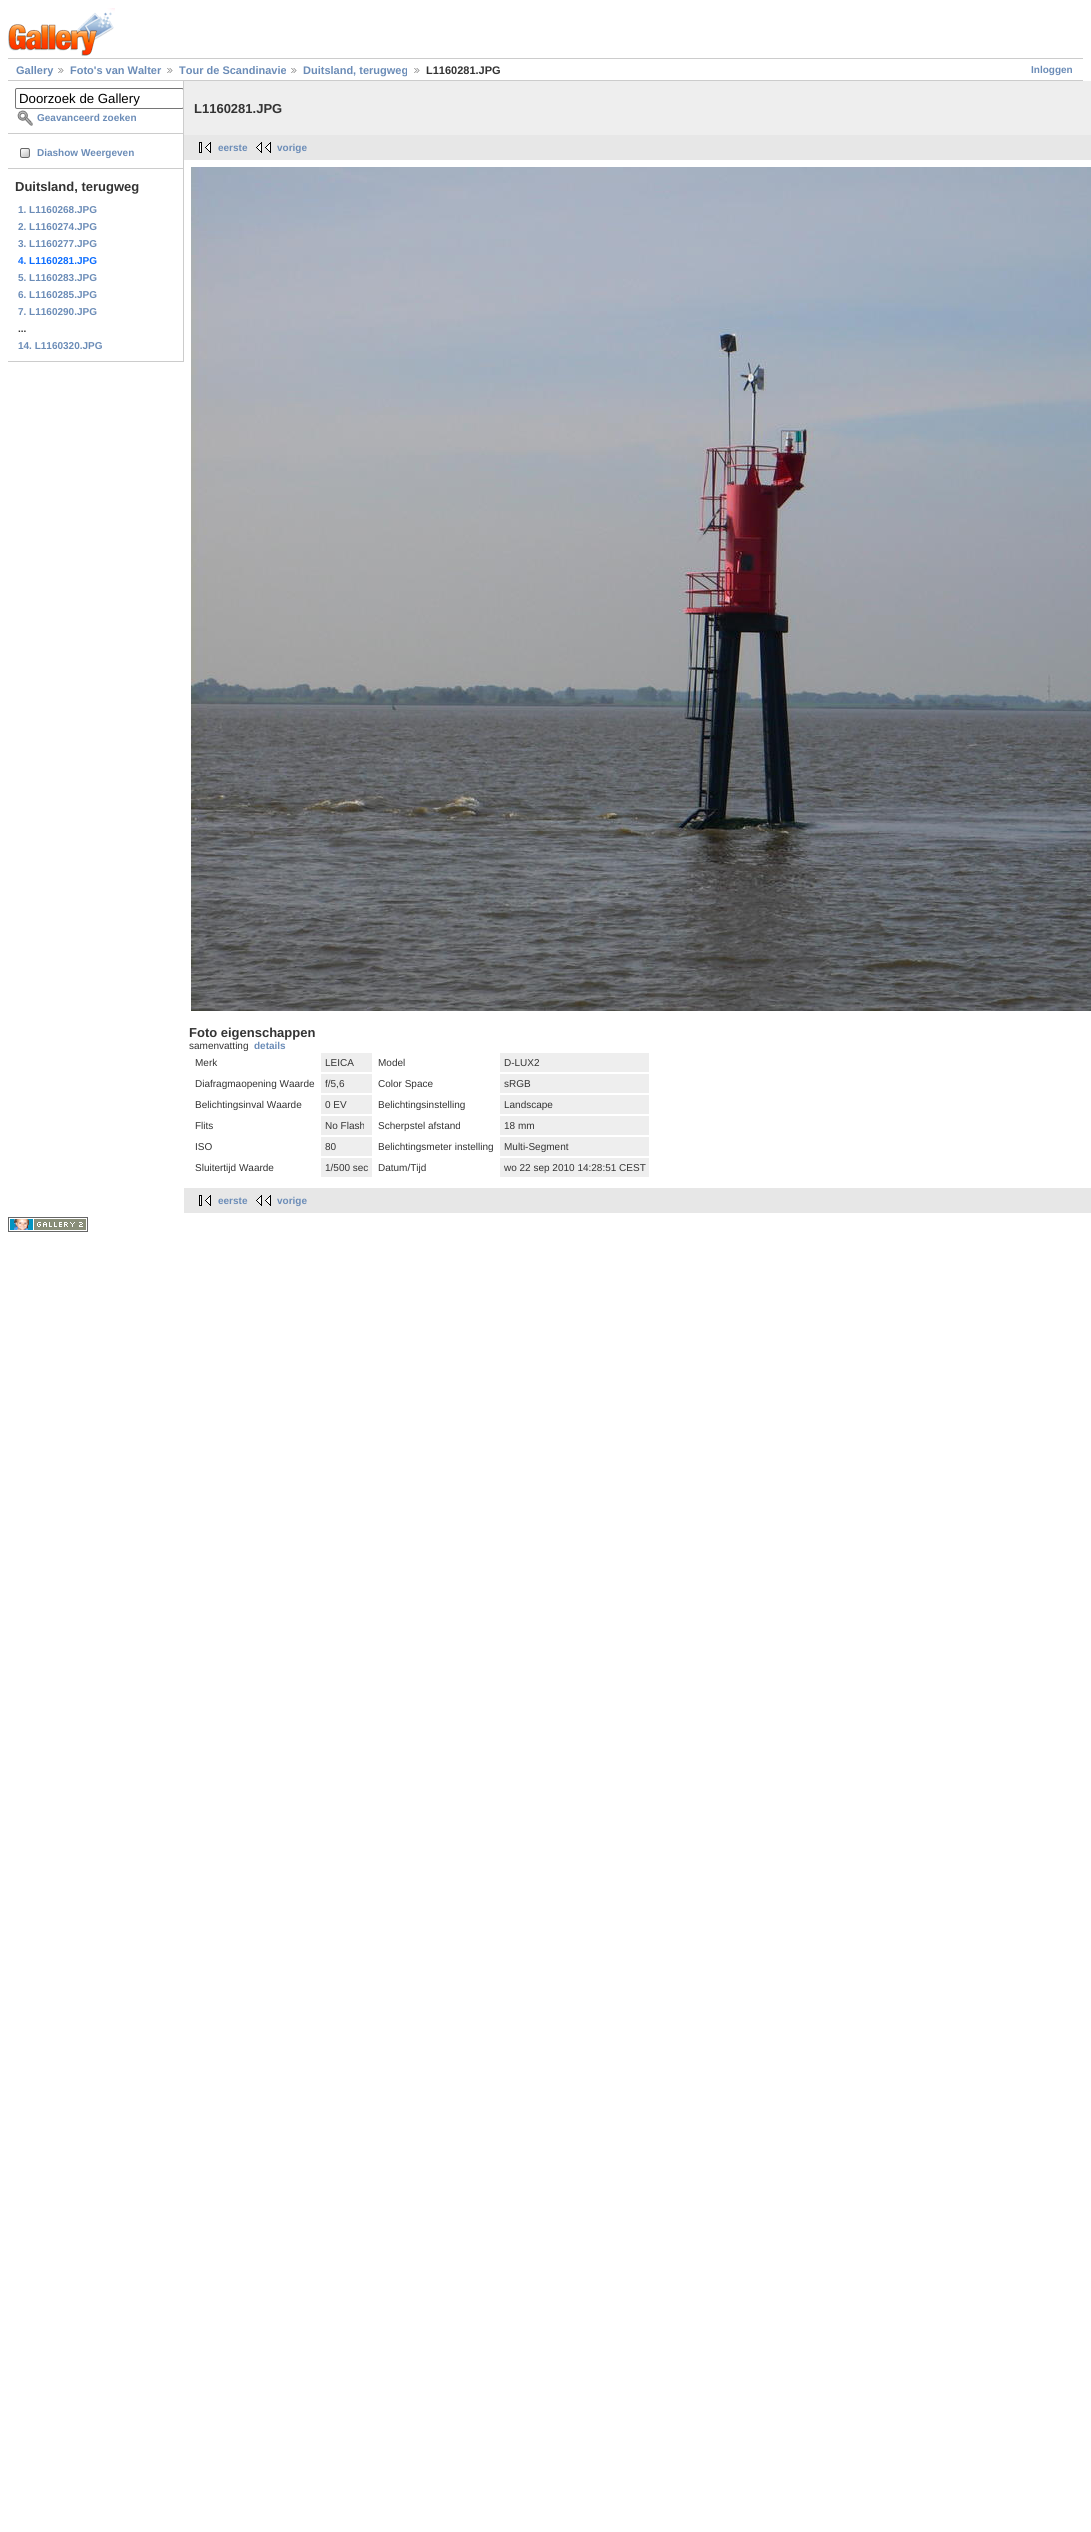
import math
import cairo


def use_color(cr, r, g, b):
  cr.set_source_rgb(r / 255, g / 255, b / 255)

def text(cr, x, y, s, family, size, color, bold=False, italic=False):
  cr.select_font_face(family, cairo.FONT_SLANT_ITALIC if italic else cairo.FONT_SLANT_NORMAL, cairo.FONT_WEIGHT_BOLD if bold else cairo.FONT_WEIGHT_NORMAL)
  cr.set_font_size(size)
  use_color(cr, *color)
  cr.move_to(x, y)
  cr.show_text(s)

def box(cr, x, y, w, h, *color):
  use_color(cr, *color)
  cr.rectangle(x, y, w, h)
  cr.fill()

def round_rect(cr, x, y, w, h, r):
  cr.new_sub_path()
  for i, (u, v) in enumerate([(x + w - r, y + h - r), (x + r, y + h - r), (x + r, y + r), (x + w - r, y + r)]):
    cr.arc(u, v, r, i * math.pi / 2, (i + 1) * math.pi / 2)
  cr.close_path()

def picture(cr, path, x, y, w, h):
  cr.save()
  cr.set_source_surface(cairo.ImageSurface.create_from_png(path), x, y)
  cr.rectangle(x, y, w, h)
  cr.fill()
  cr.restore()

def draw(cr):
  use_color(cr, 255, 255, 255)
  cr.paint()
  picture(cr, "img_01.png", 8, 8, 107, 48)
  box(cr, 8, 58, 1075, 1, 204, 204, 204)
  box(cr, 8, 80, 1075, 1, 204, 204, 204)
  picture(cr, "img_02.png", 58, 68, 6, 5)
  picture(cr, "img_02.png", 167, 68, 6, 5)
  picture(cr, "img_02.png", 291, 68, 6, 5)
  picture(cr, "img_02.png", 414, 68, 6, 5)
  box(cr, 183, 81, 1, 281, 204, 204, 204)
  box(cr, 8, 133, 175, 1, 204, 204, 204)
  cr.save()
  cr.rectangle(8, 81, 175, 281)
  cr.clip()
  round_rect(cr, 15.5, 88.5, 168, 20, 1.5)
  use_color(cr, 118, 118, 118)
  cr.set_line_width(1)
  cr.stroke()
  cr.restore()
  picture(cr, "img_03.png", 17, 110, 16, 16)
  box(cr, 8, 168, 175, 1, 204, 204, 204)
  picture(cr, "img_04.png", 20, 148, 10, 10)
  box(cr, 8, 361, 175, 1, 204, 204, 204)
  box(cr, 184, 81, 907, 54, 238, 238, 238)
  box(cr, 184, 135, 907, 25, 231, 231, 231)
  picture(cr, "img_05.png", 199, 142, 12, 11)
  picture(cr, "img_06.png", 256, 142, 15, 11)
  picture(cr, "img_07.png", 191, 167, 900, 844)
  box(cr, 321, 1053, 51, 19, 238, 238, 238)
  box(cr, 500, 1053, 149, 19, 238, 238, 238)
  box(cr, 321, 1074, 51, 19, 238, 238, 238)
  box(cr, 500, 1074, 149, 19, 238, 238, 238)
  box(cr, 321, 1095, 51, 19, 238, 238, 238)
  box(cr, 500, 1095, 149, 19, 238, 238, 238)
  box(cr, 321, 1116, 51, 19, 238, 238, 238)
  box(cr, 500, 1116, 149, 19, 238, 238, 238)
  box(cr, 321, 1137, 51, 19, 238, 238, 238)
  box(cr, 500, 1137, 149, 19, 238, 238, 238)
  box(cr, 321, 1158, 51, 19, 238, 238, 238)
  box(cr, 500, 1158, 149, 19, 238, 238, 238)
  box(cr, 184, 1188, 907, 25, 231, 231, 231)
  picture(cr, "img_05.png", 199, 1195, 12, 11)
  picture(cr, "img_06.png", 256, 1195, 15, 11)
  picture(cr, "img_08.png", 8, 1217, 80, 15)
  text(cr, 16, 74, "Gallery", "Liberation Sans", 11, (107, 140, 183), bold=True)
  text(cr, 70, 74, "Foto's van Walter", "Liberation Sans", 11, (107, 140, 183), bold=True)
  text(cr, 179, 74, "Tour de Scandinavie", "Liberation Sans", 11, (107, 140, 183), bold=True)
  text(cr, 303, 74, "Duitsland, terugweg", "Liberation Sans", 11, (107, 140, 183), bold=True)
  text(cr, 426, 74, "L1160281.JPG", "Liberation Sans", 11, (51, 51, 51), bold=True)
  text(cr, 1031, 73, "Inloggen", "Liberation Sans", 10, (107, 140, 183), bold=True)
  text(cr, 19, 103, "Doorzoek de Gallery", "Liberation Sans", 13.25, (0, 0, 0))
  text(cr, 37, 121, "Geavanceerd zoeken", "Liberation Sans", 10, (107, 140, 183), bold=True)
  text(cr, 37, 156, "Diashow Weergeven", "Liberation Sans", 10, (107, 140, 183), bold=True)
  text(cr, 15, 191, "Duitsland, terugweg", "Liberation Sans", 13, (51, 51, 51), bold=True)
  text(cr, 18, 213, "1. L1160268.JPG", "Liberation Sans", 10, (107, 140, 183), bold=True)
  text(cr, 18, 230, "2. L1160274.JPG", "Liberation Sans", 10, (107, 140, 183), bold=True)
  text(cr, 18, 247, "3. L1160277.JPG", "Liberation Sans", 10, (107, 140, 183), bold=True)
  text(cr, 18, 264, "4. L1160281.JPG", "Liberation Sans", 10, (11, 108, 255), bold=True)
  text(cr, 18, 281, "5. L1160283.JPG", "Liberation Sans", 10, (107, 140, 183), bold=True)
  text(cr, 18, 298, "6. L1160285.JPG", "Liberation Sans", 10, (107, 140, 183), bold=True)
  text(cr, 18, 315, "7. L1160290.JPG", "Liberation Sans", 10, (107, 140, 183), bold=True)
  text(cr, 18, 332, "...", "Liberation Sans", 10, (51, 51, 51), bold=True)
  text(cr, 18, 349, "14. L1160320.JPG", "Liberation Sans", 10, (107, 140, 183), bold=True)
  text(cr, 194, 113, "L1160281.JPG", "Liberation Sans", 13, (51, 51, 51), bold=True)
  text(cr, 218, 151, "eerste", "Liberation Sans", 10, (107, 140, 183), bold=True)
  text(cr, 277, 151, "vorige", "Liberation Sans", 10, (107, 140, 183), bold=True)
  text(cr, 189, 1037, "Foto eigenschappen", "Liberation Sans", 13, (51, 51, 51), bold=True)
  text(cr, 189, 1049, "samenvatting", "Liberation Sans", 10, (51, 51, 51))
  text(cr, 254, 1049, "details", "Liberation Sans", 10, (107, 140, 183), bold=True)
  text(cr, 195, 1066, "Merk", "Liberation Sans", 10, (51, 51, 51))
  text(cr, 325, 1066, "LEICA", "Liberation Sans", 10, (51, 51, 51))
  text(cr, 378, 1066, "Model", "Liberation Sans", 10, (51, 51, 51))
  text(cr, 504, 1066, "D-LUX2", "Liberation Sans", 10, (51, 51, 51))
  text(cr, 195, 1087, "Diafragmaopening Waarde", "Liberation Sans", 10, (51, 51, 51))
  text(cr, 325, 1087, "f/5,6", "Liberation Sans", 10, (51, 51, 51))
  text(cr, 378, 1087, "Color Space", "Liberation Sans", 10, (51, 51, 51))
  text(cr, 504, 1087, "sRGB", "Liberation Sans", 10, (51, 51, 51))
  text(cr, 195, 1108, "Belichtingsinval Waarde", "Liberation Sans", 10, (51, 51, 51))
  text(cr, 325, 1108, "0 EV", "Liberation Sans", 10, (51, 51, 51))
  text(cr, 378, 1108, "Belichtingsinstelling", "Liberation Sans", 10, (51, 51, 51))
  text(cr, 504, 1108, "Landscape", "Liberation Sans", 10, (51, 51, 51))
  text(cr, 195, 1129, "Flits", "Liberation Sans", 10, (51, 51, 51))
  text(cr, 325, 1129, "No Flash", "Liberation Sans", 10, (51, 51, 51))
  text(cr, 378, 1129, "Scherpstel afstand", "Liberation Sans", 10, (51, 51, 51))
  text(cr, 504, 1129, "18 mm", "Liberation Sans", 10, (51, 51, 51))
  text(cr, 195, 1150, "ISO", "Liberation Sans", 10, (51, 51, 51))
  text(cr, 325, 1150, "80", "Liberation Sans", 10, (51, 51, 51))
  text(cr, 378, 1150, "Belichtingsmeter instelling", "Liberation Sans", 10, (51, 51, 51))
  text(cr, 504, 1150, "Multi-Segment", "Liberation Sans", 10, (51, 51, 51))
  text(cr, 195, 1171, "Sluitertijd Waarde", "Liberation Sans", 10, (51, 51, 51))
  text(cr, 325, 1171, "1/500 sec", "Liberation Sans", 10, (51, 51, 51))
  text(cr, 378, 1171, "Datum/Tijd", "Liberation Sans", 10, (51, 51, 51))
  text(cr, 504, 1171, "wo 22 sep 2010 14:28:51 CEST", "Liberation Sans", 10, (51, 51, 51))
  text(cr, 218, 1204, "eerste", "Liberation Sans", 10, (107, 140, 183), bold=True)
  text(cr, 277, 1204, "vorige", "Liberation Sans", 10, (107, 140, 183), bold=True)


surface = cairo.ImageSurface(cairo.FORMAT_RGB24, 1091, 2532)
cr = cairo.Context(surface)
options = cairo.FontOptions()
options.set_hint_metrics(cairo.HINT_METRICS_OFF)
options.set_hint_style(cairo.HINT_STYLE_NONE)
cr.set_font_options(options)
cr.set_miter_limit(4)
draw(cr)
surface.write_to_png("out.png")
